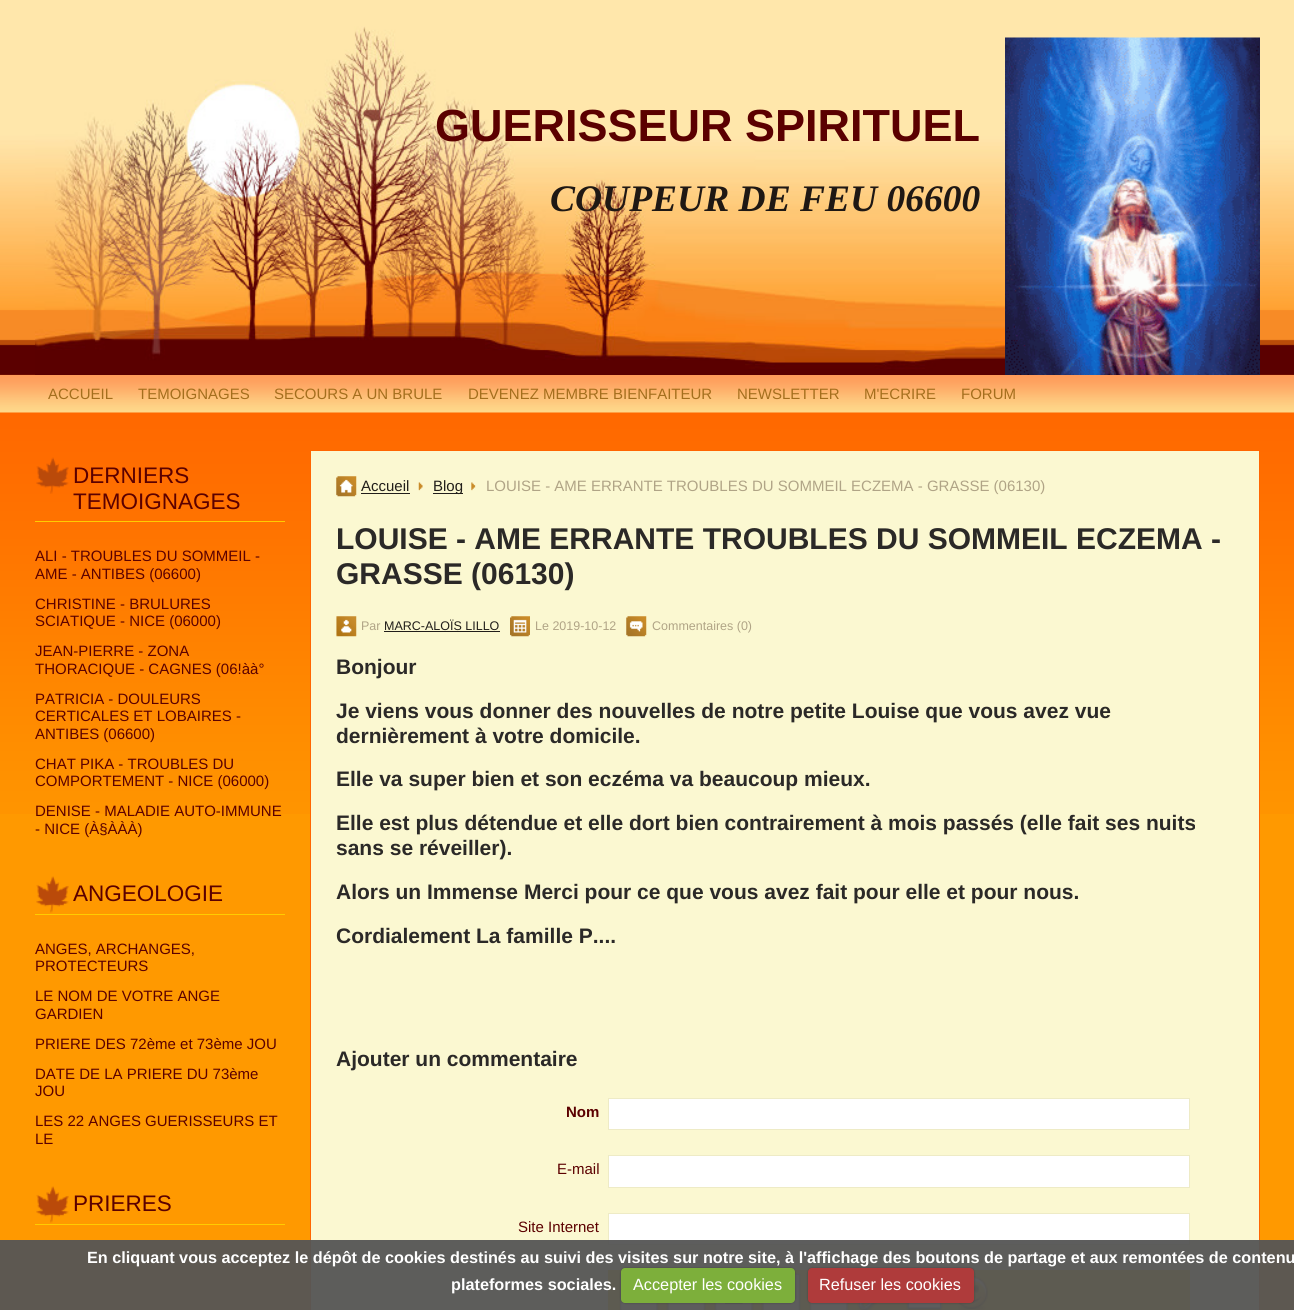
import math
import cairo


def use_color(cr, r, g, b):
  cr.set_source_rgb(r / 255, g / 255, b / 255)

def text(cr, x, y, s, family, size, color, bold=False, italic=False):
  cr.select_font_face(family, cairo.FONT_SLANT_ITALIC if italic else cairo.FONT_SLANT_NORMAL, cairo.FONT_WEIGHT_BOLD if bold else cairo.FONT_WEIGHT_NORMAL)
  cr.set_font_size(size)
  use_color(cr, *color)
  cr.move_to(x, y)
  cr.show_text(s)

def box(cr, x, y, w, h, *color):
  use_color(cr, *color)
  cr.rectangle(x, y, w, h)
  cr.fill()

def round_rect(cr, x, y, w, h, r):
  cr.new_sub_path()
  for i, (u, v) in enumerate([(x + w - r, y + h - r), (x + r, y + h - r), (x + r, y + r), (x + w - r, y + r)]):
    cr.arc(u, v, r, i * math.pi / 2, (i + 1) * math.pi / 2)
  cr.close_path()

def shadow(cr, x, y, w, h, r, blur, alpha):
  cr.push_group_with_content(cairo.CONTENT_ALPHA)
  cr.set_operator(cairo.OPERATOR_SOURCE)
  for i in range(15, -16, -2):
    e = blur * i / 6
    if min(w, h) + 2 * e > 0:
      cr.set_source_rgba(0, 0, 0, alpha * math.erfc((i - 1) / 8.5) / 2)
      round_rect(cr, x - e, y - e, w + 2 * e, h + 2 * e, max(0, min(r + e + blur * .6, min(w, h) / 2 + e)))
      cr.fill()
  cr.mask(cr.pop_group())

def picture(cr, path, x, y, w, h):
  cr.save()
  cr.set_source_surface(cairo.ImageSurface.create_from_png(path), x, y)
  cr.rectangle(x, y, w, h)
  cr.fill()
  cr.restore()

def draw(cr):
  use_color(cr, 255, 153, 0)
  cr.paint()
  picture(cr, "img_01.png", 0, 0, 1294, 814)
  picture(cr, "img_02.png", 35, 26, 1225, 349)
  picture(cr, "img_03.png", 1005, 37, 255, 338)
  picture(cr, "img_04.png", 0, 375, 1294, 38)
  picture(cr, "img_05.png", 36, 457, 33, 37)
  box(cr, 35, 521, 250, 1, 255, 204, 0)
  picture(cr, "img_06.png", 36, 876, 33, 37)
  box(cr, 35, 914, 250, 1, 255, 204, 0)
  picture(cr, "img_06.png", 36, 1186, 33, 37)
  box(cr, 35, 1224, 250, 1, 255, 204, 0)
  use_color(cr, 251, 248, 209)
  cr.rectangle(310.5, 450.5, 949, 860)
  cr.fill_preserve()
  use_color(cr, 255, 102, 0)
  cr.set_line_width(1)
  cr.stroke()
  picture(cr, "img_07.png", 336, 476, 21, 21)
  box(cr, 361, 493, 49, 1, 33, 30, 26)
  picture(cr, "img_08.png", 418, 482, 5, 9)
  box(cr, 433, 493, 30, 1, 33, 30, 26)
  picture(cr, "img_09.png", 471, 482, 5, 9)
  picture(cr, "img_10.png", 336, 616, 21, 21)
  box(cr, 384, 631, 116, 1, 33, 30, 26)
  picture(cr, "img_11.png", 510, 616, 20, 21)
  picture(cr, "img_12.png", 626, 616, 21, 21)
  use_color(cr, 255, 255, 255)
  cr.rectangle(608.5, 1098.5, 581, 31)
  cr.fill_preserve()
  use_color(cr, 238, 235, 198)
  cr.stroke()
  use_color(cr, 255, 255, 255)
  cr.rectangle(608.5, 1155.5, 581, 32)
  cr.fill_preserve()
  use_color(cr, 238, 235, 198)
  cr.stroke()
  use_color(cr, 255, 255, 255)
  cr.rectangle(608.5, 1213.5, 581, 31)
  cr.fill_preserve()
  use_color(cr, 238, 235, 198)
  cr.stroke()
  box(cr, 608, 1270, 582, 40, 255, 204, 0)
  picture(cr, "img_13.png", 619, 1273, 40, 37)
  picture(cr, "img_14.png", 666, 1303, 40, 7)
  picture(cr, "img_15.png", 714, 1303, 40, 7)
  picture(cr, "img_16.png", 761, 1273, 40, 37)
  picture(cr, "img_17.png", 809, 1301, 40, 9)
  picture(cr, "img_18.png", 857, 1303, 20, 7)
  picture(cr, "img_19.png", 906, 1303, 37, 7)
  picture(cr, "img_20.png", 958, 1276, 30, 34)
  cr.set_source_rgba(0.337, 0.337, 0.337, 0.95)
  cr.rectangle(0, 1240, 1294, 70)
  cr.fill()
  use_color(cr, 0, 0, 0)
  shadow(cr, 621, 1268, 174, 35, 4, 1, 0.25)
  use_color(cr, 125, 175, 59)
  round_rect(cr, 621, 1268, 174, 35, 4)
  cr.fill()
  use_color(cr, 0, 0, 0)
  shadow(cr, 808, 1268, 166, 35, 4, 1, 0.25)
  use_color(cr, 175, 59, 59)
  round_rect(cr, 808, 1268, 166, 35, 4)
  cr.fill()
  text(cr, 435, 141, "GUERISSEUR SPIRITUEL", "Liberation Sans", 45, (91, 0, 0), bold=True)
  text(cr, 550, 211, "COUPEUR DE FEU 06600", "Liberation Serif", 37.5, (31, 24, 20), bold=True, italic=True)
  text(cr, 48, 399, "ACCUEIL", "Liberation Sans", 15, (164, 110, 29))
  text(cr, 138, 399, "TEMOIGNAGES", "Liberation Sans", 15, (164, 110, 29))
  text(cr, 274, 399, "SECOURS A UN BRULE", "Liberation Sans", 15, (164, 110, 29))
  text(cr, 468, 399, "DEVENEZ MEMBRE BIENFAITEUR", "Liberation Sans", 15, (164, 110, 29))
  text(cr, 737, 399, "NEWSLETTER", "Liberation Sans", 15, (164, 110, 29))
  text(cr, 864, 399, "M'ECRIRE", "Liberation Sans", 15, (164, 110, 29))
  text(cr, 961, 399, "FORUM", "Liberation Sans", 15, (164, 110, 29))
  text(cr, 73, 483, "DERNIERS", "Liberation Sans", 22.5, (91, 0, 0))
  text(cr, 73, 509, "TEMOIGNAGES", "Liberation Sans", 22.5, (91, 0, 0))
  text(cr, 35, 561, "ALI - TROUBLES DU SOMMEIL -", "Liberation Sans", 15, (91, 0, 0))
  text(cr, 35, 579, "AME - ANTIBES (06600)", "Liberation Sans", 15, (91, 0, 0))
  text(cr, 35, 609, "CHRISTINE - BRULURES", "Liberation Sans", 15, (91, 0, 0))
  text(cr, 35, 626, "SCIATIQUE - NICE (06000)", "Liberation Sans", 15, (91, 0, 0))
  text(cr, 35, 656, "JEAN-PIERRE - ZONA", "Liberation Sans", 15, (91, 0, 0))
  text(cr, 35, 674, "THORACIQUE - CAGNES (06!àà°", "Liberation Sans", 15, (91, 0, 0))
  text(cr, 35, 704, "PATRICIA - DOULEURS", "Liberation Sans", 15, (91, 0, 0))
  text(cr, 35, 721, "CERTICALES ET LOBAIRES -", "Liberation Sans", 15, (91, 0, 0))
  text(cr, 35, 739, "ANTIBES (06600)", "Liberation Sans", 15, (91, 0, 0))
  text(cr, 35, 769, "CHAT PIKA - TROUBLES DU", "Liberation Sans", 15, (91, 0, 0))
  text(cr, 35, 786, "COMPORTEMENT - NICE (06000)", "Liberation Sans", 15, (91, 0, 0))
  text(cr, 35, 816, "DENISE - MALADIE AUTO-IMMUNE", "Liberation Sans", 15, (91, 0, 0))
  text(cr, 35, 834, "- NICE (À§ÀÀÀ)", "Liberation Sans", 15, (91, 0, 0))
  text(cr, 73, 901, "ANGEOLOGIE", "Liberation Sans", 22.5, (91, 0, 0))
  text(cr, 35, 954, "ANGES, ARCHANGES,", "Liberation Sans", 15, (91, 0, 0))
  text(cr, 35, 971, "PROTECTEURS", "Liberation Sans", 15, (91, 0, 0))
  text(cr, 35, 1001, "LE NOM DE VOTRE ANGE", "Liberation Sans", 15, (91, 0, 0))
  text(cr, 35, 1019, "GARDIEN", "Liberation Sans", 15, (91, 0, 0))
  text(cr, 35, 1049, "PRIERE DES 72ème et 73ème JOU", "Liberation Sans", 15, (91, 0, 0))
  text(cr, 35, 1079, "DATE DE LA PRIERE DU 73ème", "Liberation Sans", 15, (91, 0, 0))
  text(cr, 35, 1096, "JOU", "Liberation Sans", 15, (91, 0, 0))
  text(cr, 35, 1126, "LES 22 ANGES GUERISSEURS ET", "Liberation Sans", 15, (91, 0, 0))
  text(cr, 35, 1144, "LE", "Liberation Sans", 15, (91, 0, 0))
  text(cr, 73, 1211, "PRIERES", "Liberation Sans", 22.5, (91, 0, 0))
  text(cr, 361, 491, "Accueil", "Liberation Sans", 15, (33, 30, 26))
  text(cr, 433, 491, "Blog", "Liberation Sans", 15, (33, 30, 26))
  text(cr, 486, 491, "LOUISE - AME ERRANTE TROUBLES DU SOMMEIL ECZEMA - GRASSE (06130)", "Liberation Sans", 15, (176, 164, 134))
  text(cr, 336, 549, "LOUISE - AME ERRANTE TROUBLES DU SOMMEIL ECZEMA -", "Liberation Sans", 30, (43, 41, 39), bold=True)
  text(cr, 336, 584, "GRASSE (06130)", "Liberation Sans", 30, (43, 41, 39), bold=True)
  text(cr, 361, 630, "Par", "Liberation Sans", 12.5, (176, 164, 134))
  text(cr, 384, 630, "MARC-ALOÏS LILLO", "Liberation Sans", 12.5, (33, 30, 26))
  text(cr, 535, 630, "Le 2019-10-12", "Liberation Sans", 12.5, (176, 164, 134))
  text(cr, 652, 630, "Commentaires (0)", "Liberation Sans", 12.5, (176, 164, 134))
  text(cr, 336, 674, "Bonjour", "Liberation Sans", 21, (43, 41, 39), bold=True)
  text(cr, 336, 718, "Je viens vous donner des nouvelles de notre petite Louise que vous avez vue", "Liberation Sans", 21, (43, 41, 39), bold=True)
  text(cr, 336, 743, "dernièrement à votre domicile.", "Liberation Sans", 21, (43, 41, 39), bold=True)
  text(cr, 336, 786, "Elle va super bien et son eczéma va beaucoup mieux.", "Liberation Sans", 21, (43, 41, 39), bold=True)
  text(cr, 336, 830, "Elle est plus détendue et elle dort bien contrairement à mois passés (elle fait ses nuits", "Liberation Sans", 21, (43, 41, 39), bold=True)
  text(cr, 336, 855, "sans se réveiller).", "Liberation Sans", 21, (43, 41, 39), bold=True)
  text(cr, 336, 899, "Alors un Immense Merci pour ce que vous avez fait pour elle et pour nous.", "Liberation Sans", 21, (43, 41, 39), bold=True)
  text(cr, 336, 943, "Cordialement La famille P....", "Liberation Sans", 21, (43, 41, 39), bold=True)
  text(cr, 336, 1066, "Ajouter un commentaire", "Liberation Sans", 21, (43, 41, 39), bold=True)
  text(cr, 566, 1117, "Nom", "Liberation Sans", 15, (91, 0, 0), bold=True)
  text(cr, 557, 1174, "E-mail", "Liberation Sans", 15, (91, 0, 0))
  text(cr, 518, 1232, "Site Internet", "Liberation Sans", 15, (91, 0, 0))
  text(cr, 87, 1263, "En cliquant vous acceptez le dépôt de cookies destinés au suivi des visites sur notre site, à l'affichage des boutons de partage et aux remontées de contenu", "Liberation Sans", 16.25, (255, 255, 255), bold=True)
  text(cr, 451, 1290, "plateformes sociales.", "Liberation Sans", 16.25, (255, 255, 255), bold=True)
  text(cr, 633, 1290, "Accepter les cookies", "Liberation Sans", 16.25, (255, 255, 255))
  text(cr, 819, 1290, "Refuser les cookies", "Liberation Sans", 16.25, (255, 255, 255))


surface = cairo.ImageSurface(cairo.FORMAT_RGB24, 1294, 1310)
cr = cairo.Context(surface)
options = cairo.FontOptions()
options.set_hint_metrics(cairo.HINT_METRICS_OFF)
options.set_hint_style(cairo.HINT_STYLE_NONE)
cr.set_font_options(options)
cr.set_miter_limit(4)
draw(cr)
surface.write_to_png("out.png")
